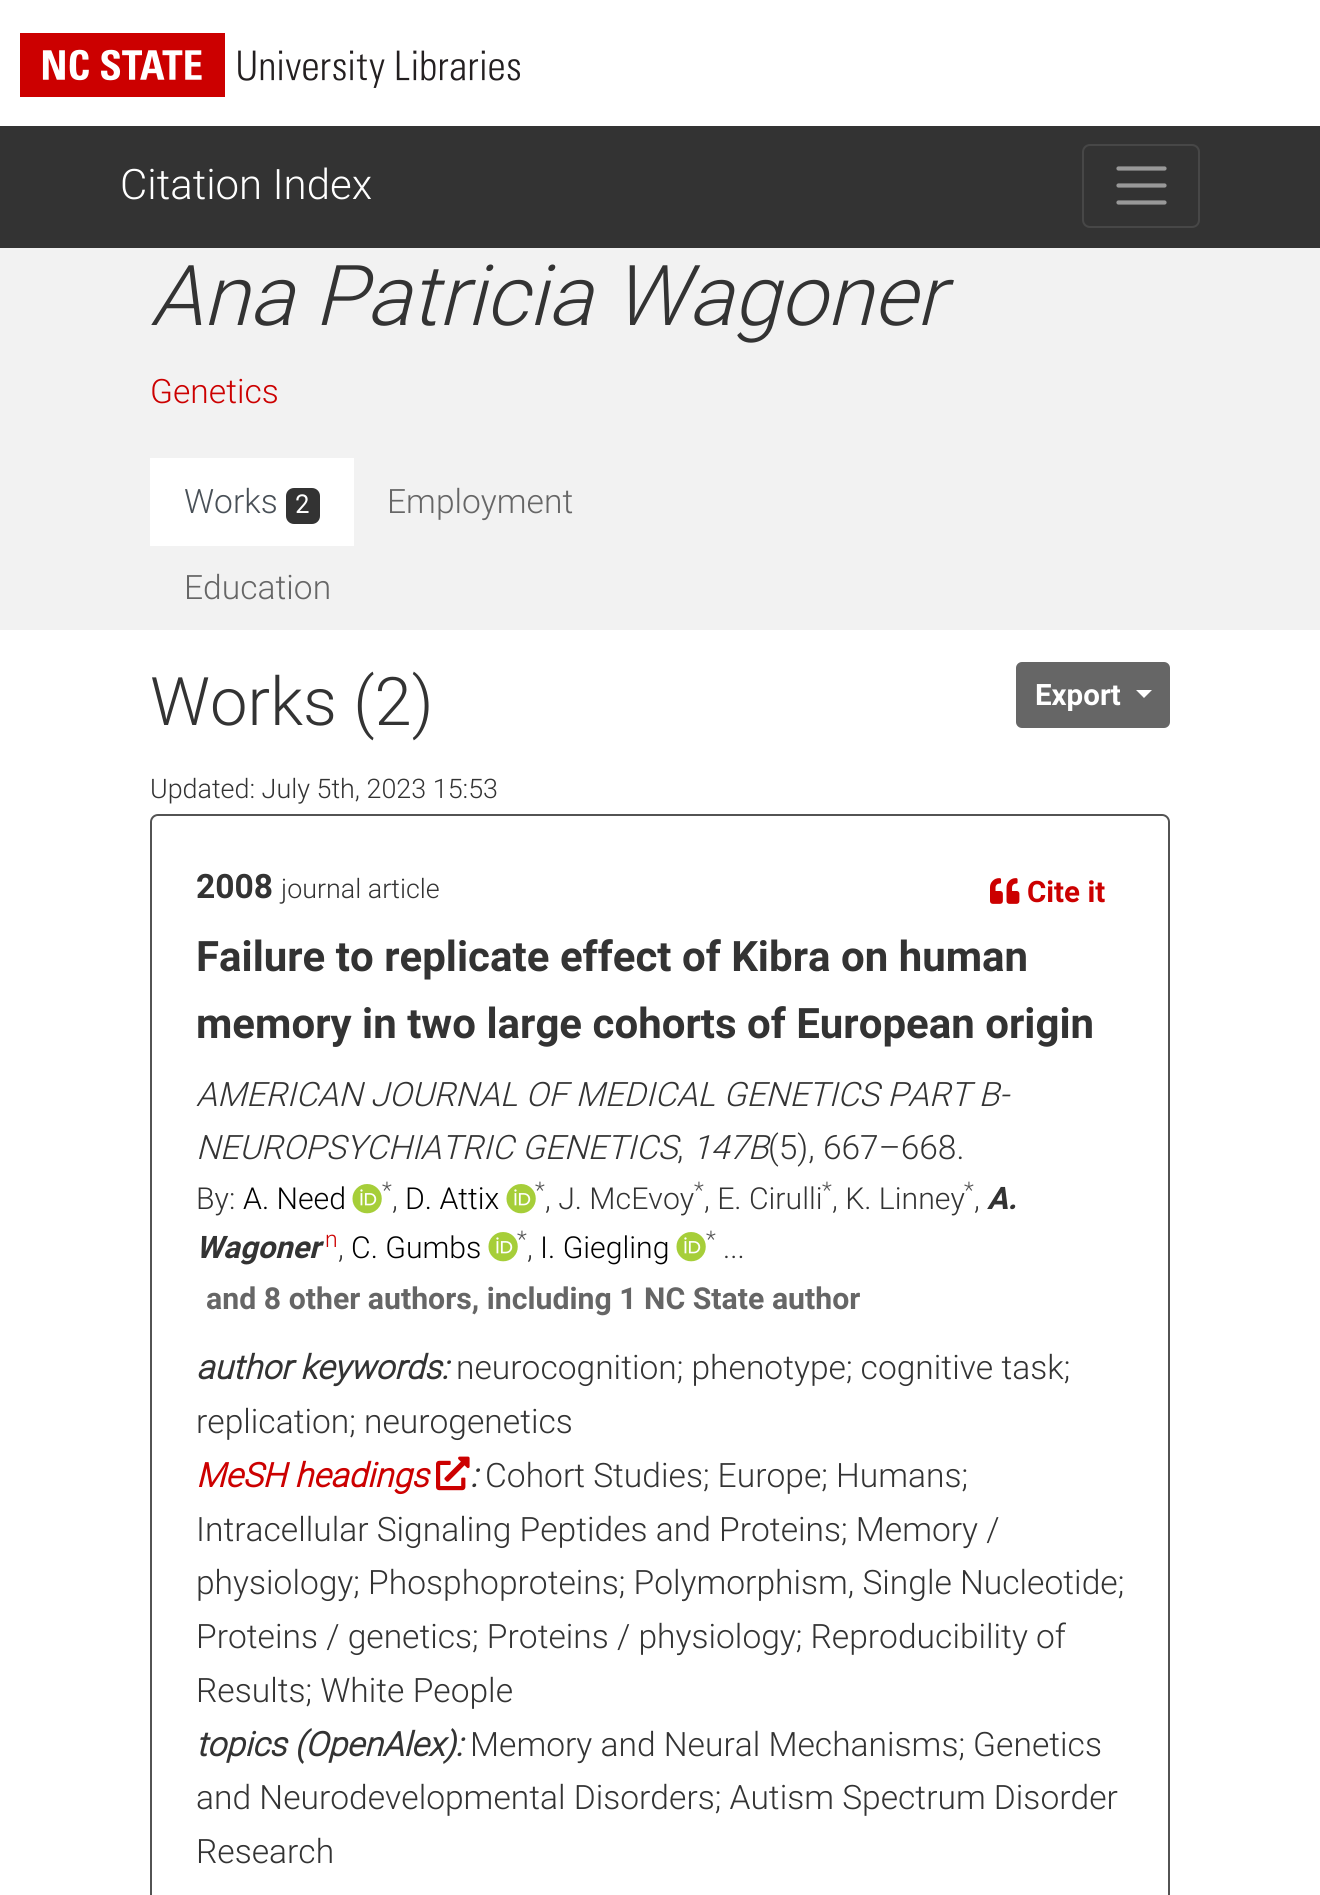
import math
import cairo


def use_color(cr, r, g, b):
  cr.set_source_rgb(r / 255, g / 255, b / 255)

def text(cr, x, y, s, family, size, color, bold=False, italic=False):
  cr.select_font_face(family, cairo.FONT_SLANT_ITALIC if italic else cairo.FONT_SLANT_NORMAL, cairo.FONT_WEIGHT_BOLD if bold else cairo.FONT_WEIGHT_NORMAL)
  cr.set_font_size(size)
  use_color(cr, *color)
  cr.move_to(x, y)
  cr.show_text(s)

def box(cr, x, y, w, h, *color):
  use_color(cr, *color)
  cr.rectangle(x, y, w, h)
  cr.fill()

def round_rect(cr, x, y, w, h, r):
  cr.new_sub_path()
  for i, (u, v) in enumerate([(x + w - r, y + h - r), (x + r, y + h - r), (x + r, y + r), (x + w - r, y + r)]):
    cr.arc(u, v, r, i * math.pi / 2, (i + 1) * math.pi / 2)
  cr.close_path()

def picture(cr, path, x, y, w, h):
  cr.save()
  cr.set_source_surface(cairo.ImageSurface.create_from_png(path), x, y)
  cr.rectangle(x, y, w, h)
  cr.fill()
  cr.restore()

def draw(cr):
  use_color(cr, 255, 255, 255)
  cr.paint()
  picture(cr, "img_01.png", 20, 33, 500, 64)
  box(cr, 0, 126, 1320, 122, 51, 51, 51)
  round_rect(cr, 1083, 145, 116, 82, 7)
  use_color(cr, 71, 71, 71)
  cr.stroke()
  cr.new_path()
  cr.move_to(1118.5, 168.5)
  cr.line_to(1164.5, 168.5)
  cr.move_to(1118.5, 185.5)
  cr.line_to(1164.5, 185.5)
  cr.move_to(1118.5, 202.5)
  cr.line_to(1164.5, 202.5)
  use_color(cr, 153, 153, 153)
  cr.set_line_width(4.2)
  cr.set_line_cap(cairo.LINE_CAP_ROUND)
  cr.stroke()
  box(cr, 0, 248, 1320, 382, 242, 242, 242)
  box(cr, 150, 458, 204, 88, 255, 255, 255)
  use_color(cr, 51, 51, 51)
  round_rect(cr, 286, 488, 34, 36, 8)
  cr.fill()
  use_color(cr, 102, 102, 102)
  round_rect(cr, 1017, 663, 152, 64, 5)
  cr.fill_preserve()
  cr.set_line_width(2)
  cr.set_line_cap(cairo.LINE_CAP_BUTT)
  cr.stroke()
  use_color(cr, 255, 255, 255)
  cr.new_path()
  cr.move_to(1136, 690)
  cr.line_to(1152, 690)
  cr.line_to(1144, 698)
  cr.close_path()
  cr.fill()
  round_rect(cr, 151, 815, 1018, 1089, 7)
  use_color(cr, 83, 83, 83)
  cr.stroke()
  use_color(cr, 255, 255, 255)
  round_rect(cr, 152, 816, 1016, 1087, 8)
  cr.fill()
  picture(cr, "img_02.png", 990, 878, 30, 26)
  picture(cr, "img_03.png", 352, 1184, 30, 30)
  picture(cr, "img_03.png", 506, 1184, 30, 30)
  picture(cr, "img_03.png", 488, 1232, 30, 30)
  picture(cr, "img_03.png", 676, 1232, 30, 30)
  picture(cr, "img_04.png", 436, 1456, 34, 35)
  text(cr, 120, 199, "Citation Index", "Roboto Light", 42, (255, 255, 255))
  text(cr, 150, 325, "Ana Patricia Wagoner", "Roboto Light", 84, (51, 51, 51), italic=True)
  text(cr, 150, 403, "Genetics", "Roboto Light", 33.6, (204, 0, 0))
  text(cr, 184, 513, "Works", "Roboto Light", 33.6, (73, 80, 87))
  text(cr, 295, 513, "2", "Roboto", 25, (255, 255, 255), bold=True)
  text(cr, 387, 513, "Employment", "Roboto Light", 33.6, (102, 102, 102))
  text(cr, 184, 599, "Education", "Roboto Light", 33.6, (102, 102, 102))
  text(cr, 150, 725, "Works (2)", "Roboto Light", 67, (51, 51, 51))
  text(cr, 150, 798, "Updated: July 5th, 2023 15:53", "Roboto Light", 26.9, (51, 51, 51))
  text(cr, 1035, 705, "Export", "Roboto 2", 29.5, (255, 255, 255), bold=True)
  text(cr, 196, 898, "2008", "Roboto 2", 33.6, (51, 51, 51), bold=True)
  text(cr, 281, 898, "journal article", "Roboto Light", 26.9, (51, 51, 51))
  text(cr, 1027, 902, "Cite it", "Roboto 2", 29.5, (204, 0, 0), bold=True)
  text(cr, 196, 971, "Failure to replicate effect of Kibra on human", "Roboto 2", 42, (51, 51, 51), bold=True)
  text(cr, 196, 1038, "memory in two large cohorts of European origin", "Roboto 2", 42, (51, 51, 51), bold=True)
  text(cr, 196, 1106, "AMERICAN JOURNAL OF MEDICAL GENETICS PART B-", "Roboto Light", 33.6, (51, 51, 51), italic=True)
  text(cr, 196, 1159, "NEUROPSYCHIATRIC GENETICS", "Roboto Light", 33.6, (51, 51, 51), italic=True)
  text(cr, 692, 1159, "147B", "Roboto Light", 33.6, (51, 51, 51), italic=True)
  text(cr, 768, 1159, "(5), 667–668.", "Roboto Light", 33.6, (51, 51, 51))
  text(cr, 677, 1159, ",", "Roboto Light", 33.6, (51, 51, 51))
  text(cr, 243, 1209, "A. Need", "Roboto Light", 30.25, (0, 0, 0))
  text(cr, 382, 1198, "*", "Roboto Light", 23, (83, 83, 83))
  text(cr, 392, 1209, ",", "Roboto Light", 30.25, (51, 51, 51))
  text(cr, 405, 1209, "D. Attix", "Roboto Light", 30.25, (0, 0, 0))
  text(cr, 535, 1198, "*", "Roboto Light", 23, (83, 83, 83))
  text(cr, 545, 1209, ", J. McEvoy", "Roboto Light", 30.25, (51, 51, 51))
  text(cr, 694, 1198, "*", "Roboto Light", 23, (83, 83, 83))
  text(cr, 704, 1209, ", E. Cirulli", "Roboto Light", 30.25, (51, 51, 51))
  text(cr, 822, 1198, "*", "Roboto Light", 23, (83, 83, 83))
  text(cr, 832, 1209, ", K. Linney", "Roboto Light", 30.25, (51, 51, 51))
  text(cr, 964, 1198, "*", "Roboto Light", 23, (83, 83, 83))
  text(cr, 974, 1209, ",", "Roboto Light", 30.25, (51, 51, 51))
  text(cr, 987, 1209, "A.", "Roboto", 31, (51, 51, 51), bold=True, italic=True)
  text(cr, 196, 1258, "Wagoner", "Roboto", 31, (51, 51, 51), bold=True, italic=True)
  text(cr, 325, 1247, "n", "Roboto Light", 23, (204, 0, 0))
  text(cr, 338, 1258, ",", "Roboto Light", 30.25, (51, 51, 51))
  text(cr, 351, 1258, "C. Gumbs", "Roboto Light", 30.25, (0, 0, 0))
  text(cr, 517, 1247, "*", "Roboto Light", 23, (83, 83, 83))
  text(cr, 527, 1258, ",", "Roboto Light", 30.25, (51, 51, 51))
  text(cr, 540, 1258, "I. Giegling", "Roboto Light", 30.25, (0, 0, 0))
  text(cr, 706, 1247, "*", "Roboto Light", 23, (83, 83, 83))
  text(cr, 723, 1258, "...", "Roboto Light", 30.25, (51, 51, 51))
  text(cr, 206, 1309, "and 8 other authors, including 1 NC State author", "Roboto 2", 30.25, (102, 102, 102), bold=True)
  text(cr, 196, 1209, "By:", "Roboto Light", 30.25, (51, 51, 51))
  text(cr, 196, 1379, "author keywords:", "Roboto 2", 33.6, (51, 51, 51), bold=True, italic=True)
  text(cr, 456, 1379, "neurocognition; phenotype; cognitive task;", "Roboto Light", 33.6, (51, 51, 51))
  text(cr, 196, 1433, "replication; neurogenetics", "Roboto Light", 33.6, (51, 51, 51))
  text(cr, 196, 1487, "MeSH headings", "Roboto 2", 33.6, (204, 0, 0), bold=True, italic=True)
  text(cr, 470, 1487, ":", "Roboto 2", 33.6, (51, 51, 51), bold=True, italic=True)
  text(cr, 485, 1487, "Cohort Studies; Europe; Humans;", "Roboto Light", 33.6, (51, 51, 51))
  text(cr, 196, 1541, "Intracellular Signaling Peptides and Proteins; Memory /", "Roboto Light", 33.6, (51, 51, 51))
  text(cr, 196, 1594, "physiology; Phosphoproteins; Polymorphism, Single Nucleotide;", "Roboto Light", 33.6, (51, 51, 51))
  text(cr, 196, 1648, "Proteins / genetics; Proteins / physiology; Reproducibility of", "Roboto Light", 33.6, (51, 51, 51))
  text(cr, 196, 1702, "Results; White People", "Roboto Light", 33.6, (51, 51, 51))
  text(cr, 196, 1756, "topics (OpenAlex):", "Roboto 2", 33.6, (51, 51, 51), bold=True, italic=True)
  text(cr, 470, 1756, "Memory and Neural Mechanisms; Genetics", "Roboto Light", 33.6, (51, 51, 51))
  text(cr, 196, 1809, "and Neurodevelopmental Disorders; Autism Spectrum Disorder", "Roboto Light", 33.6, (51, 51, 51))
  text(cr, 196, 1863, "Research", "Roboto Light", 33.6, (51, 51, 51))


surface = cairo.ImageSurface(cairo.FORMAT_RGB24, 1320, 1895)
cr = cairo.Context(surface)
options = cairo.FontOptions()
options.set_hint_metrics(cairo.HINT_METRICS_OFF)
options.set_hint_style(cairo.HINT_STYLE_NONE)
cr.set_font_options(options)
cr.set_miter_limit(4)
draw(cr)
surface.write_to_png("out.png")
